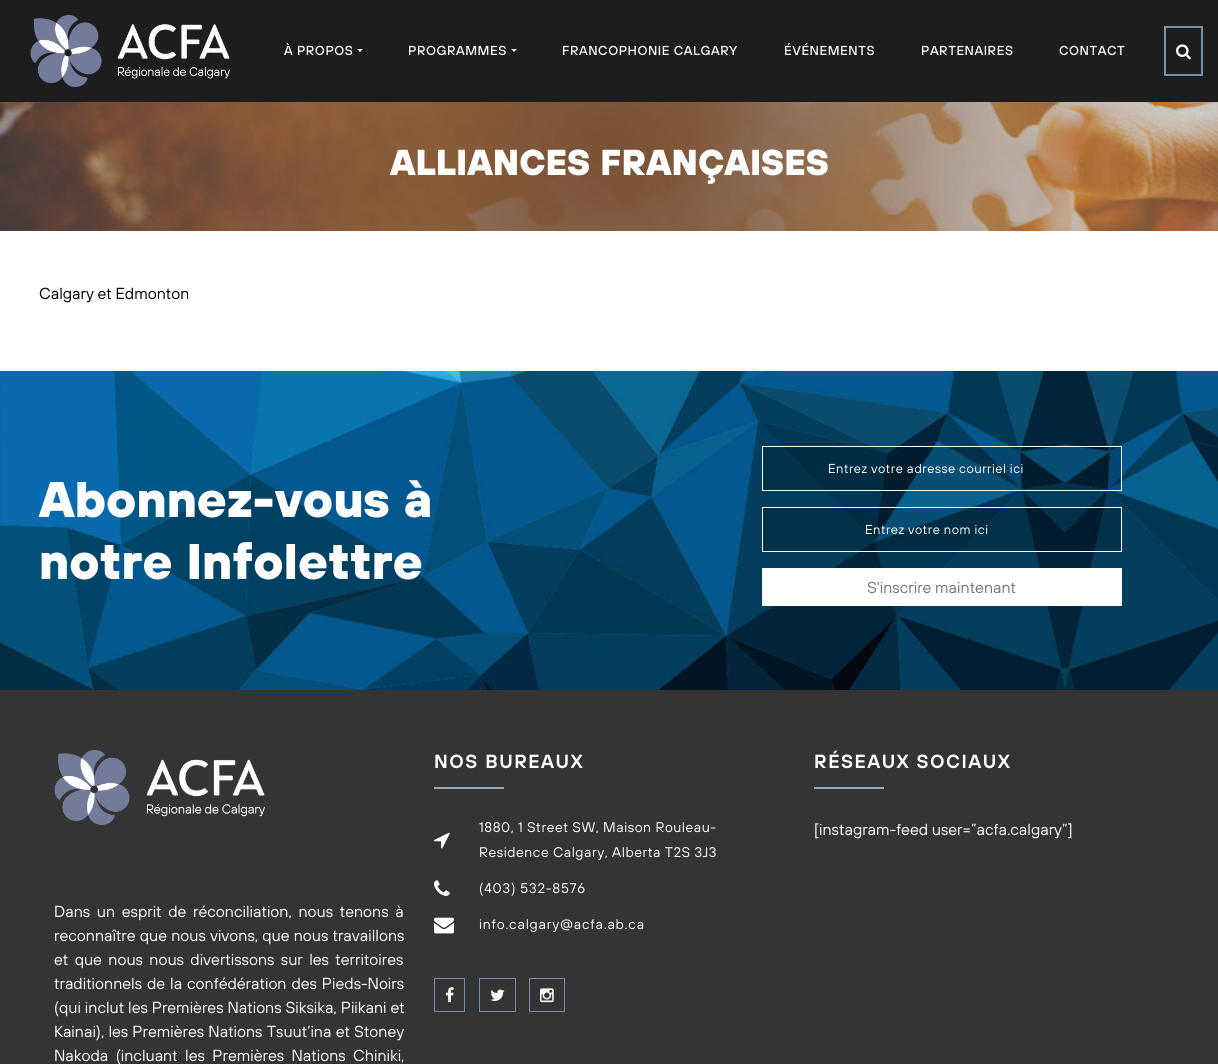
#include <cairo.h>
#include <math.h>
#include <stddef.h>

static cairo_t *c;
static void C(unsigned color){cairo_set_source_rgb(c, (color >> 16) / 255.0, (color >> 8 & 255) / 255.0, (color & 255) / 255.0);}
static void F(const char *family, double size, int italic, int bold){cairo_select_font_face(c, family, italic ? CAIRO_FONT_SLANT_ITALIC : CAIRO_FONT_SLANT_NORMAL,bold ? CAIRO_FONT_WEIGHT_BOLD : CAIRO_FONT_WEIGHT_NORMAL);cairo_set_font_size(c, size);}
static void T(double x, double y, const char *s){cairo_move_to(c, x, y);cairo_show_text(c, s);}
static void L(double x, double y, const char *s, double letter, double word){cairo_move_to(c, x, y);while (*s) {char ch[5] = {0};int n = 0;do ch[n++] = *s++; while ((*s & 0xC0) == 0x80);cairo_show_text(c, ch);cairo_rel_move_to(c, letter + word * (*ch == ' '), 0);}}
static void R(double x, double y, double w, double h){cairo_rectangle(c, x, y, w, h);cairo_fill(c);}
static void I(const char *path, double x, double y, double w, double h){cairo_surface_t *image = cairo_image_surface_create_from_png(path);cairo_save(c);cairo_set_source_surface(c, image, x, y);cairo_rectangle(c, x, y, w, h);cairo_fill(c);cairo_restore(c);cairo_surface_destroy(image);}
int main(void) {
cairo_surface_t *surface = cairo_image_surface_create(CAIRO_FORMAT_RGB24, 1218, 1064);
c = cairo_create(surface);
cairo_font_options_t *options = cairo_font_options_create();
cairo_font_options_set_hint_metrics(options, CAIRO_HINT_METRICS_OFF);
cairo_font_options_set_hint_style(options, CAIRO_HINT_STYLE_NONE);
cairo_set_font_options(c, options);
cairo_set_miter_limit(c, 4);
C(0xffffff);
cairo_paint(c);
C(0x1d1d1d);
R(0,0,1218,102);
I("1.png",30,15,200,72);
F("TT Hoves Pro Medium",13,0,0);
C(0xffffff);
L(284,55,"À PROPOS",.55,0);
cairo_new_path(c);
cairo_move_to(c,357,49);
cairo_line_to(c,363,49);
cairo_line_to(c,360,52);
cairo_close_path(c);
cairo_fill(c);
L(408,55,"PROGRAMMES",.55,0);
cairo_new_path(c);
cairo_move_to(c,511,49);
cairo_line_to(c,517,49);
cairo_line_to(c,514,52);
cairo_close_path(c);
cairo_fill(c);
L(562,55,"FRANCOPHONIE CALGARY",.55,0);
L(784,55,"ÉVÉNEMENTS",.55,0);
L(921,55,"PARTENAIRES",.55,0);
L(1059,55,"CONTACT",.55,0);
cairo_rectangle(c,1165,27,37,48);
C(0x7b8eaa);
cairo_stroke(c);
I("2.png",1176,44,15,16);
I("3.png",0,102,1218,129);
F("TT Hoves Pro ExtraBold",36,0,0);
C(0xffffff);
T(390,175,"ALLIANCES FRANÇAISES");
F("TT Hoves Pro",16,0,0);
C(0x000000);
T(39,299,"Calgary et Edmonton");
I("4.png",0,371,1218,319);
F("TT Hoves Pro ExtraBold",50,0,0);
C(0xffffff);
T(39,517,"Abonnez-vous à");
T(39,579,"notre Infolettre");
cairo_set_source_rgba(c,0,0,0,0.2);
cairo_rectangle(c,762.5,446.5,359,44);
cairo_fill_preserve(c);
C(0xffffff);
cairo_set_line_width(c,1);
cairo_stroke(c);
F("TT Hoves Pro",13,0,0);
L(828,473,"Entrez votre adresse courriel ici",.5,0);
cairo_set_source_rgba(c,0,0,0,0.2);
cairo_rectangle(c,762.5,507.5,359,44);
cairo_fill_preserve(c);
C(0xffffff);
cairo_stroke(c);
L(865,534,"Entrez votre nom ici",.5,0);
R(762,568,360,38);
F("TT Hoves Pro",16,0,0);
C(0x777777);
T(867,593,"S'inscrire maintenant");
C(0x343434);
R(0,690,1218,374);
F("TT Hoves Pro SemiBold",19,0,0);
C(0xffffff);
L(434,768,"NOS BUREAUX",1.5,0);
C(0x97adbe);
R(434,787,70,2);
F("TT Hoves Pro",14,0,0);
C(0xffffff);
L(479,832,"1880, 1 Street SW, Maison Rouleau-",.55,0);
I("5.png",434,832,16,17);
L(479,857,"Residence Calgary, Alberta T2S 3J3",.55,0);
I("6.png",434,880,16,16);
L(479,893,"(403) 532-8576",.8,0);
I("7.png",434,917,20,17);
L(479,929,"info.calgary@acfa.ab.ca",.8,0);
cairo_rectangle(c,434.5,978.5,30,33);
C(0x7b8eaa);
cairo_stroke(c);
I("8.png",445,987,9,16);
cairo_rectangle(c,479.5,978.5,36,33);
cairo_stroke(c);
I("9.png",490,989,15,12);
cairo_rectangle(c,529.5,978.5,35,33);
cairo_stroke(c);
I("10.png",540,988,14,15);
F("TT Hoves Pro SemiBold",19,0,0);
C(0xffffff);
L(814,768,"RÉSEAUX SOCIAUX",1.5,0);
C(0x97adbe);
R(814,787,70,2);
F("TT Hoves Pro",16,0,0);
C(0xffffff);
T(814,835,"[instagram-feed user=”acfa.calgary”]");
I("11.png",54,750,211,75);
L(54,917,"Dans un esprit de réconciliation, nous tenons à",0,3);
L(54,941,"reconnaître que nous vivons, que nous travaillons",0,.5);
L(54,965,"et que nous nous divertissons sur les territoires",0,2.75);
L(54,989,"traditionnels de la confédération des Pieds-Noirs",0,1.25);
L(54,1013,"(qui inclut les Premières Nations Siksika, Piikani et",0,.25);
L(54,1037,"Kainai), les Premières Nations Tsuut’ina et Stoney",0,.5);
L(54,1061,"Nakoda (incluant les Premières Nations Chiniki,",0,3.75);
cairo_surface_write_to_png(surface, "o.png");
cairo_font_options_destroy(options);
cairo_destroy(c);
cairo_surface_destroy(surface);
return 0;
}
